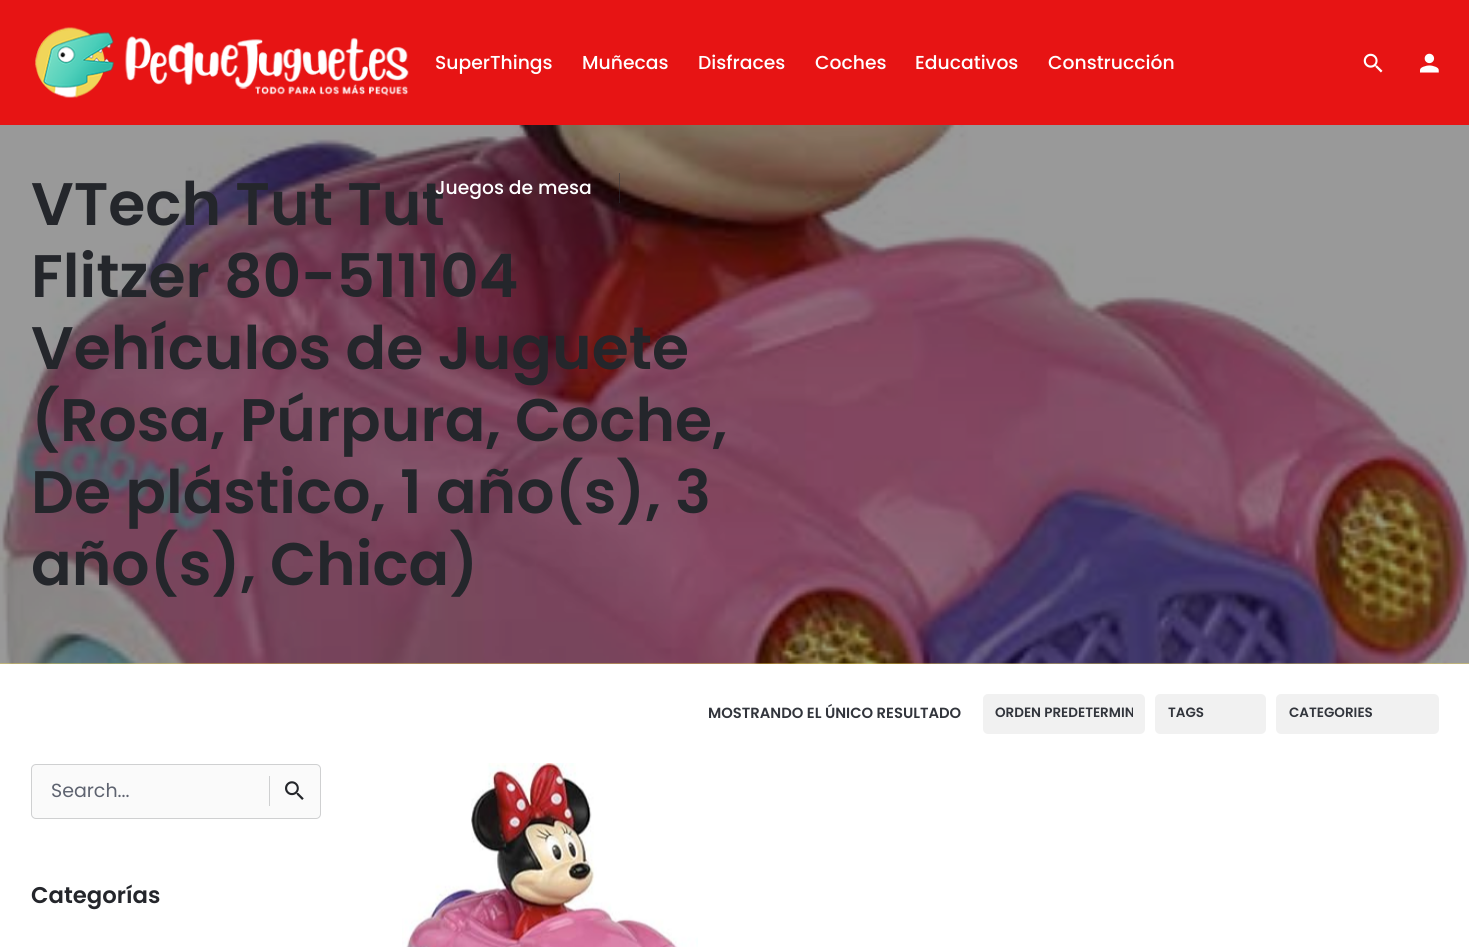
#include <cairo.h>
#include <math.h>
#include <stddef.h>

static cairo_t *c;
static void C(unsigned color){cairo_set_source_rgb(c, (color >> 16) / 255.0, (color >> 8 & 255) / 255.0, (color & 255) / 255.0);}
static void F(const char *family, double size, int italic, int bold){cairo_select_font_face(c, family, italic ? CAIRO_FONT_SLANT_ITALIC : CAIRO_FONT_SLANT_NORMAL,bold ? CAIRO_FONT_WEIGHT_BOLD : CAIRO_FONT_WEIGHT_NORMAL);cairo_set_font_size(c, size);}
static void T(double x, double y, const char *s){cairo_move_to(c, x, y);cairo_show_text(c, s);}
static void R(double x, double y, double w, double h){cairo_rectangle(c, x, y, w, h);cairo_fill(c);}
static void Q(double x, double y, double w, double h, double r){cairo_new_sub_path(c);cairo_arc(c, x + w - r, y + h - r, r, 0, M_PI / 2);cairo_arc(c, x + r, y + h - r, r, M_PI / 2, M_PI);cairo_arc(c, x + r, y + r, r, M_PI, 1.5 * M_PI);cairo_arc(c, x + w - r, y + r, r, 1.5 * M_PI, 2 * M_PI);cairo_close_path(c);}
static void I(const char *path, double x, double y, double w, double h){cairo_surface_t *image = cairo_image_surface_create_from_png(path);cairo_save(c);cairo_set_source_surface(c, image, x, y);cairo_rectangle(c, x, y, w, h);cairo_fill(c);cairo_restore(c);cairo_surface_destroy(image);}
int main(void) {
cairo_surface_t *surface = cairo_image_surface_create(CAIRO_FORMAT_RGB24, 1469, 947);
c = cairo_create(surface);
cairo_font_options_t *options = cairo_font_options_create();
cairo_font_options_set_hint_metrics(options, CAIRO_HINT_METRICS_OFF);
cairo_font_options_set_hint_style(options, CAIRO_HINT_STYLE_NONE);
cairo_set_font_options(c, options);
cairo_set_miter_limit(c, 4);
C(0xffffff);
cairo_paint(c);
C(0xe71414);
R(0,0,1469,125);
I("1.png",35,27,374,71);
F("Poppins Medium",18.75,0,0);
C(0xffffff);
T(435,69,"SuperThings");
T(582,69,"Muñecas");
T(698,69,"Disfraces");
T(815,69,"Coches");
T(915,69,"Educativos");
T(1048,69,"Construcción");
C(0xf0d559);
R(0,663,1469,1);
I("4.png",0,125,1469,539);
F("Poppins SemiBold",60,0,0);
C(0x24262b);
T(31,225,"VTech Tut Tut");
F("Poppins Medium",18.75,0,0);
C(0xffffff);
T(435,194,"Juegos de mesa");
cairo_set_source_rgba(c,0.196,0.208,0.235,0.5);
R(619,173,1,30);
I("2.png",1363,53,20,20);
I("3.png",1420,53,19,20);
F("Poppins SemiBold",60,0,0);
C(0x24262b);
T(31,297,"Flitzer 80-511104");
T(31,369,"Vehículos de Juguete");
T(31,441,"(Rosa, Púrpura, Coche,");
T(31,513,"De plástico, 1 año(s), 3");
T(31,585,"año(s), Chica)");
F("Poppins SemiBold",14.75,0,0);
C(0x32353c);
T(708,718,"MOSTRANDO EL ÚNICO RESULTADO");
C(0xf1f1f1);
Q(983,694,162,40,5);
cairo_fill(c);
cairo_save(c);
cairo_rectangle(c,995,701,138,25);
cairo_clip(c);
F("Poppins SemiBold",13.5,0,0);
C(0x32353c);
T(995,717,"ORDEN PREDETERMIN");
cairo_restore(c);
Q(1155,694,111,40,5);
cairo_fill(c);
F("Poppins SemiBold",13.5,0,0);
C(0x32353c);
T(1168,717,"TAGS");
C(0xf1f1f1);
Q(1276,694,163,40,5);
cairo_fill(c);
C(0x32353c);
T(1289,717,"CATEGORIES");
C(0xfafafa);
Q(31.5,764.5,289,54,4.5);
cairo_fill_preserve(c);
C(0xcfd0d1);
cairo_set_line_width(c,1);
cairo_stroke(c);
F("Poppins",19,0,0);
C(0x5e6370);
T(51,797,"Search...");
C(0xcfd0d1);
R(269,776,1,30);
I("5.png",285,781,19,19);
F("Poppins SemiBold",22.75,0,0);
C(0x24262b);
T(31,903,"Categorías");
I("6.png",402,763,296,184);
cairo_surface_write_to_png(surface, "o.png");
cairo_font_options_destroy(options);
cairo_destroy(c);
cairo_surface_destroy(surface);
return 0;
}
